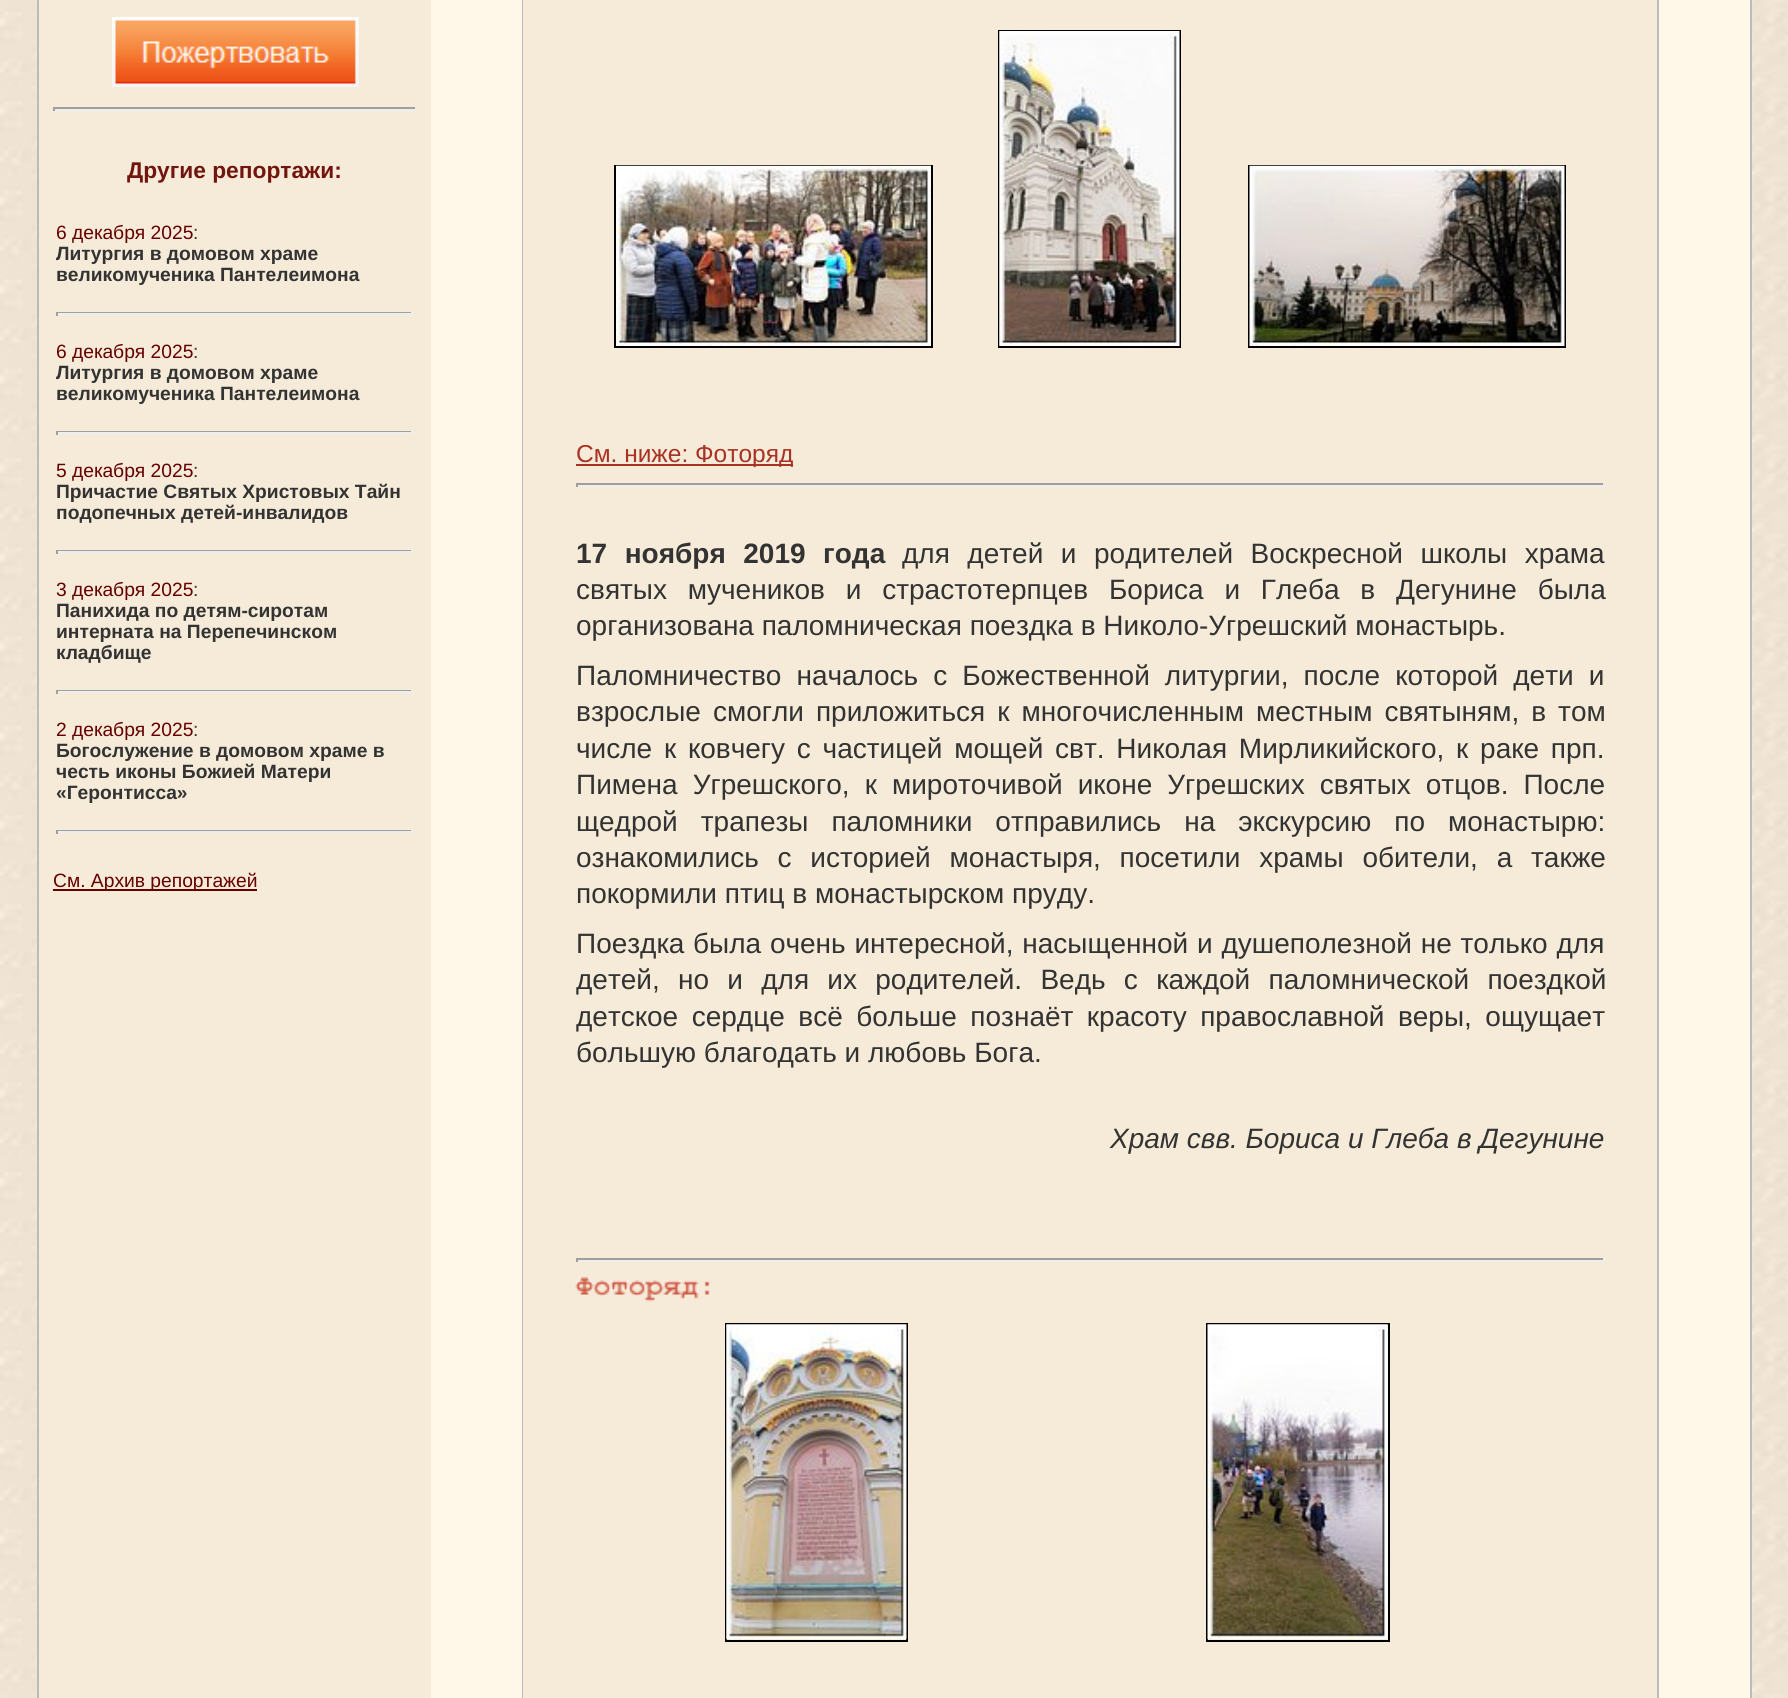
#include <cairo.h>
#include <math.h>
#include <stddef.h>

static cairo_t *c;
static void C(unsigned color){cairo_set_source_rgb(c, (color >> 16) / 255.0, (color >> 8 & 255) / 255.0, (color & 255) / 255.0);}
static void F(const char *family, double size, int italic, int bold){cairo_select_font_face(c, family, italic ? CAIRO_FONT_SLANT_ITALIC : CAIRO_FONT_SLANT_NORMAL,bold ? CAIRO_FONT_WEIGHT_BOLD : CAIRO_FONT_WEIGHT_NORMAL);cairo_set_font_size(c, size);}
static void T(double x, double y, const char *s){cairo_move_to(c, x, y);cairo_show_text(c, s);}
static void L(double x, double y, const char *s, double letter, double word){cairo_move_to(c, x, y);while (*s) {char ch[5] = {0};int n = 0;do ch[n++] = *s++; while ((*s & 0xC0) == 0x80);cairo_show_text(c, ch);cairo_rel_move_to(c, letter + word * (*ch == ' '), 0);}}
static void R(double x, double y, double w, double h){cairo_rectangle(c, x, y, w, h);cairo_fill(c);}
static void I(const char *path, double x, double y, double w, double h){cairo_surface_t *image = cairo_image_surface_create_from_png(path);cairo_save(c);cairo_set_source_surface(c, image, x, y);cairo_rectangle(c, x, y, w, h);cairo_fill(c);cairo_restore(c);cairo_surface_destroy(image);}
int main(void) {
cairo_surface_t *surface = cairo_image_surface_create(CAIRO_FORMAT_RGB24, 1788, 1698);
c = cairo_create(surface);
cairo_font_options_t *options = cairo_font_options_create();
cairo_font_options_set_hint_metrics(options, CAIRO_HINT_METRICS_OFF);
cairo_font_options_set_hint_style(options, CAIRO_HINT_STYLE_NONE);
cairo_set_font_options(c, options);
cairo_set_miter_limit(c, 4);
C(0xffffff);
cairo_paint(c);
I("1.png",0,0,1788,1698);
cairo_rectangle(c,38,-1,1713,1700);
C(0xbbbbbb);
cairo_stroke(c);
C(0xf5ebd8);
R(39,0,392,1698);
I("2.png",112,17,247,70);
C(0x9f9f9f);
R(53,107,364,2);
C(0xeeeeee);
R(415,107,2,4);
R(53,109,364,2);
C(0x9f9f9f);
R(53,107,2,4);
F("Liberation Sans",22.75,0,1);
C(0x72150e);
T(127,178,"Другие репортажи:");
F("Liberation Sans",19.25,0,0);
C(0x660000);
T(56,239,"6 декабря 2025");
C(0x333333);
T(193,239,":");
F("Liberation Sans",19.25,0,1);
T(56,260,"Литургия в домовом храме");
T(56,281,"великомученика Пантелеимона");
C(0x9f9f9f);
R(56,312,357,1);
C(0xeeeeee);
R(411,312,2,4);
R(56,313,357,2);
C(0x9f9f9f);
R(56,312,2,4);
F("Liberation Sans",19.25,0,0);
C(0x660000);
T(56,358,"6 декабря 2025");
C(0x333333);
T(193,358,":");
F("Liberation Sans",19.25,0,1);
T(56,379,"Литургия в домовом храме");
T(56,400,"великомученика Пантелеимона");
C(0x9f9f9f);
R(56,431,357,1);
C(0xeeeeee);
R(411,431,2,4);
R(56,432,357,2);
C(0x9f9f9f);
R(56,431,2,4);
F("Liberation Sans",19.25,0,0);
C(0x660000);
T(56,477,"5 декабря 2025");
C(0x333333);
T(193,477,":");
F("Liberation Sans",19.25,0,1);
T(56,498,"Причастие Святых Христовых Тайн");
T(56,519,"подопечных детей-инвалидов");
C(0x9f9f9f);
R(56,550,357,1);
C(0xeeeeee);
R(411,550,2,4);
R(56,551,357,2);
C(0x9f9f9f);
R(56,550,2,4);
F("Liberation Sans",19.25,0,0);
C(0x660000);
T(56,596,"3 декабря 2025");
C(0x333333);
T(193,596,":");
F("Liberation Sans",19.25,0,1);
T(56,617,"Панихида по детям-сиротам");
T(56,638,"интерната на Перепечинском");
T(56,659,"кладбище");
C(0x9f9f9f);
R(56,690,357,1);
C(0xeeeeee);
R(411,690,2,4);
R(56,691,357,2);
C(0x9f9f9f);
R(56,690,2,4);
F("Liberation Sans",19.25,0,0);
C(0x660000);
T(56,736,"2 декабря 2025");
C(0x333333);
T(193,736,":");
F("Liberation Sans",19.25,0,1);
T(56,757,"Богослужение в домовом храме в");
T(56,778,"честь иконы Божией Матери");
T(56,799,"«Геронтисса»");
C(0x9f9f9f);
R(56,830,357,1);
C(0xeeeeee);
R(411,830,2,4);
R(56,831,357,2);
C(0x9f9f9f);
R(56,830,2,4);
C(0x660000);
R(53,889,204,2);
F("Liberation Sans",19.25,0,0);
T(53,887,"См. Архив репортажей");
C(0xfff8e8);
R(431,0,1319,1698);
cairo_rectangle(c,523,-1,1135,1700);
C(0xbbbbbb);
cairo_stroke(c);
C(0xf5ebd8);
R(523,0,1134,1698);
cairo_rectangle(c,615,166,317,181);
C(0x000000);
cairo_stroke(c);
I("3.png",616,165,315,181);
cairo_rectangle(c,999,31,181,316);
cairo_stroke(c);
I("4.png",999,31,181,315);
cairo_rectangle(c,1249,166,316,181);
cairo_stroke(c);
I("5.png",1249,165,316,181);
C(0xa83224);
R(576,464,217,2);
F("Liberation Sans",24.5,0,0);
T(576,462,"См. ниже: Фоторяд");
C(0x9f9f9f);
R(576,483,1029,2);
C(0xeeeeee);
R(1603,483,2,4);
R(576,485,1029,2);
C(0x9f9f9f);
R(576,483,2,4);
F("Liberation Sans",28,0,1);
C(0x333333);
L(576,563,"17 ноября 2019 года",0,9.75);
F("Liberation Sans",28,0,0);
L(902,563,"для детей и родителей Воскресной школы храма",0,9.75);
L(576,599,"святых мучеников и страстотерпцев Бориса и Глеба в Дегунине была",0,13);
T(576,635,"организована паломническая поездка в Николо-Угрешский монастырь.");
L(576,685,"Паломничество началось с Божественной литургии, после которой дети и",0,7.25);
L(576,721,"взрослые смогли приложиться к многочисленным местным святыням, в том",0,4.25);
L(576,758,"числе к ковчегу с частицей мощей свт. Николая Мирликийского, к раке прп.",0,4);
L(576,794,"Пимена Угрешского, к мироточивой иконе Угрешских святых отцов. После",0,7.25);
L(576,831,"щедрой трапезы паломники отправились на экскурсию по монастырю:",0,15.25);
L(576,867,"ознакомились с историей монастыря, посетили храмы обители, а также",0,11);
T(576,903,"покормили птиц в монастырском пруду.");
L(576,953,"Поездка была очень интересной, насыщенной и душеполезной не только для",0,1);
L(576,989,"детей, но и для их родителей. Ведь с каждой паломнической поездкой",0,10.5);
L(576,1026,"детское сердце всё больше познаёт красоту православной веры, ощущает",0,5.75);
T(576,1062,"большую благодать и любовь Бога.");
F("Liberation Sans",28,1,0);
T(1110,1148,"Храм свв. Бориса и Глеба в Дегунине");
C(0x9f9f9f);
R(576,1258,1029,2);
C(0xeeeeee);
R(1603,1258,2,4);
R(576,1260,1029,2);
C(0x9f9f9f);
R(576,1258,2,4);
I("6.png",575,1277,136,25);
cairo_rectangle(c,726,1324,181,317);
C(0x000000);
cairo_stroke(c);
I("7.png",726,1324,181,316);
cairo_rectangle(c,1207,1324,182,317);
cairo_stroke(c);
I("8.png",1207,1324,181,316);
cairo_surface_write_to_png(surface, "o.png");
cairo_font_options_destroy(options);
cairo_destroy(c);
cairo_surface_destroy(surface);
return 0;
}
